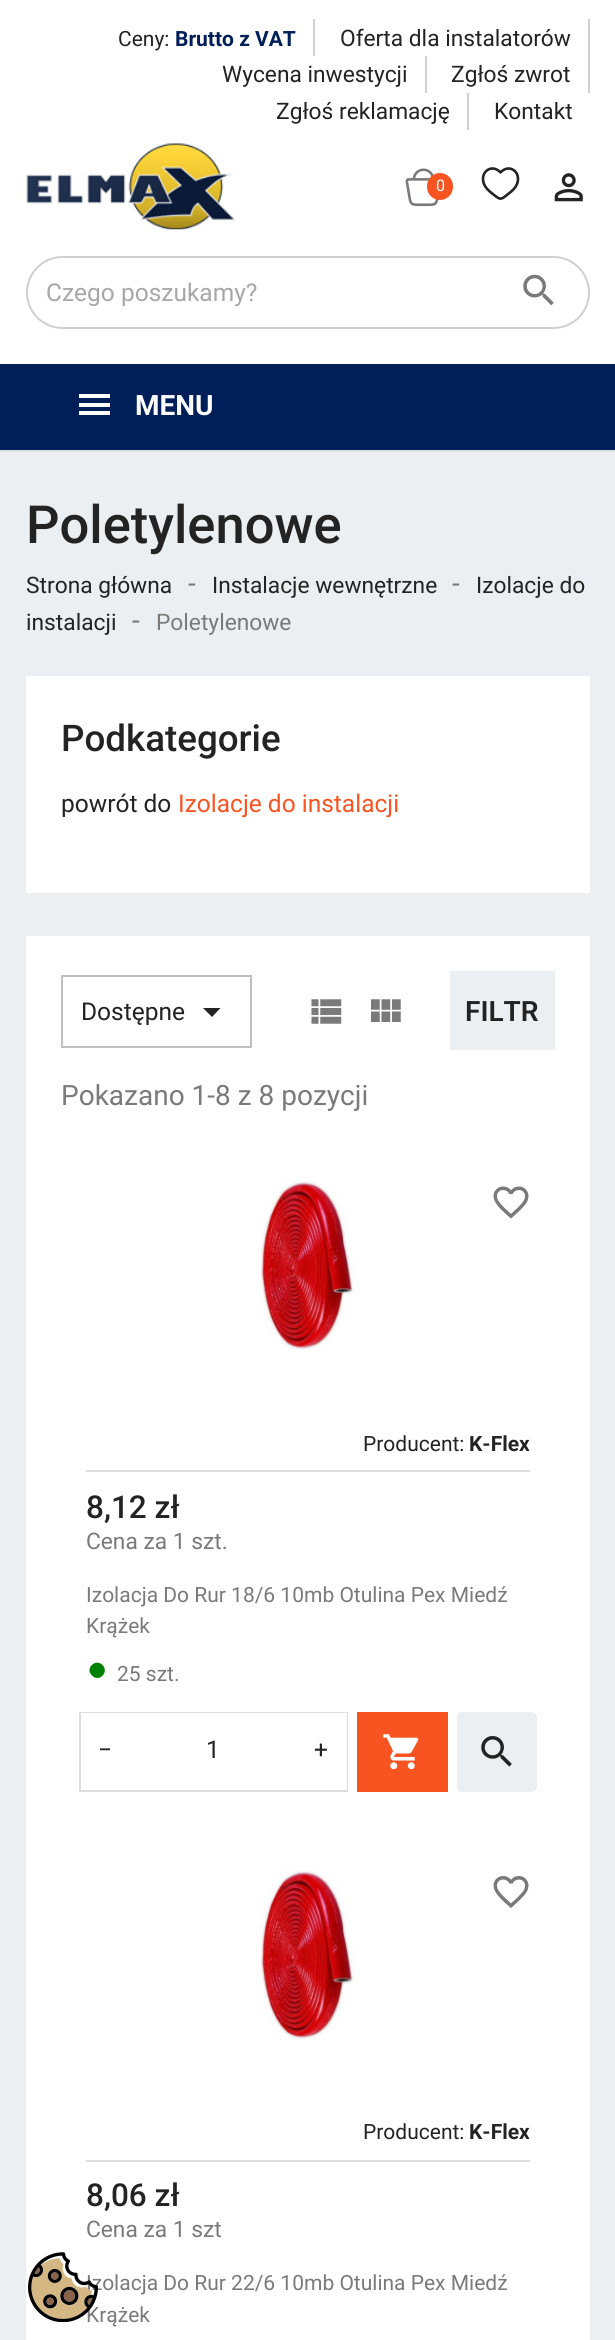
#include <cairo.h>
#include <math.h>
#include <stddef.h>

static cairo_t *c;
static void C(unsigned color){cairo_set_source_rgb(c, (color >> 16) / 255.0, (color >> 8 & 255) / 255.0, (color & 255) / 255.0);}
static void F(const char *family, double size, int italic, int bold){cairo_select_font_face(c, family, italic ? CAIRO_FONT_SLANT_ITALIC : CAIRO_FONT_SLANT_NORMAL,bold ? CAIRO_FONT_WEIGHT_BOLD : CAIRO_FONT_WEIGHT_NORMAL);cairo_set_font_size(c, size);}
static void T(double x, double y, const char *s){cairo_move_to(c, x, y);cairo_show_text(c, s);}
static void R(double x, double y, double w, double h){cairo_rectangle(c, x, y, w, h);cairo_fill(c);}
static void Q(double x, double y, double w, double h, double r){cairo_new_sub_path(c);cairo_arc(c, x + w - r, y + h - r, r, 0, M_PI / 2);cairo_arc(c, x + r, y + h - r, r, M_PI / 2, M_PI);cairo_arc(c, x + r, y + r, r, M_PI, 1.5 * M_PI);cairo_arc(c, x + w - r, y + r, r, 1.5 * M_PI, 2 * M_PI);cairo_close_path(c);}
static void I(const char *path, double x, double y, double w, double h){cairo_surface_t *image = cairo_image_surface_create_from_png(path);cairo_save(c);cairo_set_source_surface(c, image, x, y);cairo_rectangle(c, x, y, w, h);cairo_fill(c);cairo_restore(c);cairo_surface_destroy(image);}
int main(void) {
cairo_surface_t *surface = cairo_image_surface_create(CAIRO_FORMAT_RGB24, 615, 2340);
c = cairo_create(surface);
cairo_font_options_t *options = cairo_font_options_create();
cairo_font_options_set_hint_metrics(options, CAIRO_HINT_METRICS_OFF);
cairo_font_options_set_hint_style(options, CAIRO_HINT_STYLE_NONE);
cairo_set_font_options(c, options);
cairo_set_miter_limit(c, 4);
C(0xffffff);
cairo_paint(c);
C(0xdfdfdf);
R(0,450,615,2);
C(0xd1d1d1);
R(313,19,2,37);
F("Roboto",21,0,0);
C(0x232323);
T(118,46,"Ceny:");
F("Roboto",21,0,1);
C(0x001e58);
T(175,46,"Brutto z VAT");
C(0xd1d1d1);
R(588,19,2,74);
F("Roboto",22.75,0,0);
C(0x232323);
T(340,46,"Oferta dla instalatorów");
C(0xd1d1d1);
R(425,56,2,37);
C(0x232323);
T(222,82,"Wycena inwestycji");
T(451,82,"Zgłoś zwrot");
C(0xd1d1d1);
R(467,93,2,37);
C(0x232323);
T(276,119,"Zgłoś reklamację");
T(494,119,"Kontakt");
I("1.png",26,143,210,87);
I("2.png",405,168,34,39);
C(0xf85422);
Q(427,173,26,27,13);
cairo_fill(c);
F("Roboto",16,0,0);
C(0xffffff);
T(436,191,"0");
I("3.png",481,167,39,33);
I("4.png",554,173,29,29);
Q(27,257,562,71,35.5);
C(0xcfcfcf);
cairo_stroke(c);
cairo_save(c);
cairo_rectangle(c,46,278,514,28);
cairo_clip(c);
F("Roboto",24.5,0,0);
C(0xa7a7a7);
T(46,301,"Czego poszukamy?");
cairo_restore(c);
I("5.png",523,274,31,32);
C(0x001e58);
R(0,364,615,86);
C(0xffffff);
R(79,394,31,4);
R(79,403,31,4);
R(79,411,31,4);
F("Roboto",28,0,1);
T(135,415,"MENU");
C(0xeceff1);
R(0,452,615,1888);
F("Roboto Medium",52.5,0,0);
C(0x232323);
T(26,543,"Poletylenowe");
F("Roboto",22.75,0,0);
T(26,593,"Strona główna");
F("Roboto",28,0,0);
C(0x7a7a7a);
T(188,593,"-");
F("Roboto",22.75,0,0);
C(0x232323);
T(212,593,"Instalacje wewnętrzne");
F("Roboto",28,0,0);
C(0x7a7a7a);
T(452,593,"-");
F("Roboto",22.75,0,0);
C(0x232323);
T(476,593,"Izolacje do");
T(26,630,"instalacji");
F("Roboto",28,0,0);
C(0x7a7a7a);
T(132,630,"-");
F("Roboto",22.75,0,0);
T(156,630,"Poletylenowe");
C(0xffffff);
R(26,676,564,217);
F("Roboto Medium",36.75,0,0);
C(0x232323);
T(61,751,"Podkategorie");
F("Roboto",24.5,0,0);
T(61,812,"powrót do");
C(0xf85422);
T(178,812,"Izolacje do instalacji");
C(0xffffff);
R(26,936,564,1404);
cairo_rectangle(c,62,976,189,71);
C(0xbfbfbf);
cairo_stroke(c);
C(0x232323);
T(81,1020,"Dostępne");
cairo_new_path(c);
cairo_move_to(c,203,1008);
cairo_line_to(c,220.5,1008);
cairo_line_to(c,212,1017);
cairo_close_path(c);
cairo_fill(c);
I("6.png",311,999,31,25);
I("7.png",371,999,30,23);
C(0xeceff1);
R(450,971,105,79);
F("Roboto SemiBold",28,0,0);
C(0x232323);
T(465,1021,"FILTR");
F("Roboto",28,0,0);
C(0x7a7a7a);
T(61,1105,"Pokazano 1-8 z 8 pozycji");
I("8.png",260,1179,96,171);
I("9.png",493,1186,36,33);
C(0xdddddd);
R(86,1470,444,2);
F("Roboto",21,0,0);
C(0x232323);
T(363,1451,"Producent:");
F("Roboto",21,0,1);
T(469,1451,"K-Flex");
F("Roboto Medium",31.5,0,0);
T(86,1518,"8,12 zł");
F("Roboto",22.75,0,0);
C(0x7a7a7a);
T(86,1549,"Cena za 1 szt.");
F("Roboto",21,0,0);
T(86,1602,"Izolacja Do Rur 18/6 10mb Otulina Pex Miedź");
T(86,1633,"Krążek");
C(0x008000);
cairo_new_path(c);
cairo_move_to(c,92,1675.5);
cairo_curve_to(c,84.5,1668.5,95.5,1658,102.5,1665);
cairo_curve_to(c,109.5,1672,99,1683,92,1675.5);
cairo_close_path(c);
cairo_fill(c);
C(0x7a7a7a);
T(117,1681,"25 szt.");
cairo_rectangle(c,80,1713,267,78);
C(0xdddddd);
cairo_stroke(c);
C(0xffffff);
R(81,1713,217,1);
F("Roboto",24.5,0,0);
C(0x232323);
T(98,1758,"−");
T(206,1758,"1");
C(0xffffff);
R(298,1713,49,77);
C(0x232323);
T(314,1758,"+");
C(0xf85422);
R(357,1712,91,80);
I("10.png",383,1734,36,36);
C(0xeceff1);
Q(457,1712,80,80,5);
cairo_fill(c);
I("11.png",481,1736,31,31);
I("12.png",260,1869,96,171);
I("13.png",493,1876,36,32);
C(0xdddddd);
R(86,2160,444,2);
F("Roboto",21,0,0);
C(0x232323);
T(363,2139,"Producent:");
F("Roboto",21,0,1);
T(469,2139,"K-Flex");
F("Roboto Medium",31.5,0,0);
T(86,2206,"8,06 zł");
F("Roboto",22.75,0,0);
C(0x7a7a7a);
T(86,2237,"Cena za 1 szt");
F("Roboto",21,0,0);
T(86,2290,"Izolacja Do Rur 22/6 10mb Otulina Pex Miedź");
T(86,2322,"Krążek");
I("14.png",28,2252,70,70);
cairo_surface_write_to_png(surface, "o.png");
cairo_font_options_destroy(options);
cairo_destroy(c);
cairo_surface_destroy(surface);
return 0;
}
